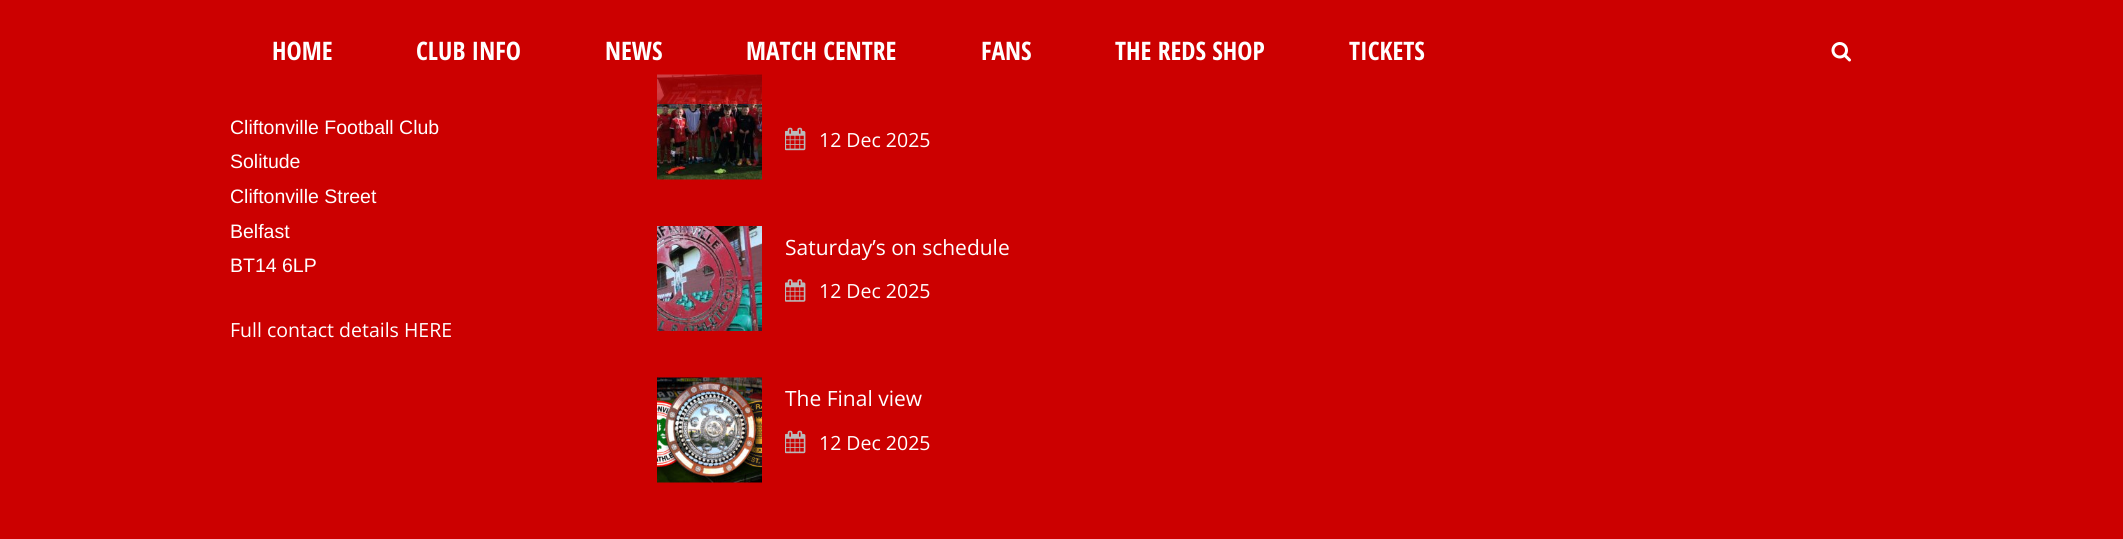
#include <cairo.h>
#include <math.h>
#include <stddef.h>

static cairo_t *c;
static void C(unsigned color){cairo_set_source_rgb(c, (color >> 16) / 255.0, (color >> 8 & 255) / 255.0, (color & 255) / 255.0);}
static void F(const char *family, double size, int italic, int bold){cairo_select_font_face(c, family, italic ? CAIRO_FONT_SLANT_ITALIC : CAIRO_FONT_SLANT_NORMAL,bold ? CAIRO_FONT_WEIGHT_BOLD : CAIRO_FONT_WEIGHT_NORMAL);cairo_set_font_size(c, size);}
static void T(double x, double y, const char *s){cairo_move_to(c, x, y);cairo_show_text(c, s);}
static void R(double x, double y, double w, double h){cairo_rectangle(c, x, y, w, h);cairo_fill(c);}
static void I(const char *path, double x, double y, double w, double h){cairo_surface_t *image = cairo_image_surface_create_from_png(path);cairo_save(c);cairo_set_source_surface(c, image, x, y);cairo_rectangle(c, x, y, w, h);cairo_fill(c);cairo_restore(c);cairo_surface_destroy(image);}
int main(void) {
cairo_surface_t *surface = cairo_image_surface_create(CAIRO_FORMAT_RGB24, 2123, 539);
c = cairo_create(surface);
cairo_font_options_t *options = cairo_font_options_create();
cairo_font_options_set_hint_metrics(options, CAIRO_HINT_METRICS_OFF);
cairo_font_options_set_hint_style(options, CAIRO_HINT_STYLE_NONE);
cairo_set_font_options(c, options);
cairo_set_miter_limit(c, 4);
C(0xcc0000);
cairo_paint(c);
I("2.png",657,74,105,106);
cairo_set_source_rgba(c,0.8,0,0,0.7);
R(657,74,105,30);
F("Open Sans Condensed",25.5,0,1);
C(0xffffff);
T(272,60,"HOME");
T(416,60,"CLUB INFO");
T(605,60,"NEWS");
T(746,60,"MATCH CENTRE");
T(981,60,"FANS");
T(1115,60,"THE REDS SHOP");
T(1349,60,"TICKETS");
I("1.png",1831,42,20,20);
F("Liberation Sans",19.5,0,0);
T(230,134,"Cliftonville Football Club");
T(230,168,"Solitude");
T(230,203,"Cliftonville Street");
T(230,238,"Belfast");
T(230,272,"BT14 6LP");
F("Open Sans",19.5,0,0);
T(230,337,"Full contact details HERE");
I("3.png",785,127,21,24);
T(819,147,"12 Dec 2025");
I("4.png",657,226,105,105);
F("Open Sans",21,0,0);
T(785,255,"Saturday’s on schedule");
I("5.png",785,279,21,23);
F("Open Sans",19.5,0,0);
T(819,298,"12 Dec 2025");
I("6.png",657,377,105,106);
F("Open Sans",21,0,0);
T(785,406,"The Final view");
I("3.png",785,430,21,24);
F("Open Sans",19.5,0,0);
T(819,450,"12 Dec 2025");
cairo_surface_write_to_png(surface, "o.png");
cairo_font_options_destroy(options);
cairo_destroy(c);
cairo_surface_destroy(surface);
return 0;
}
